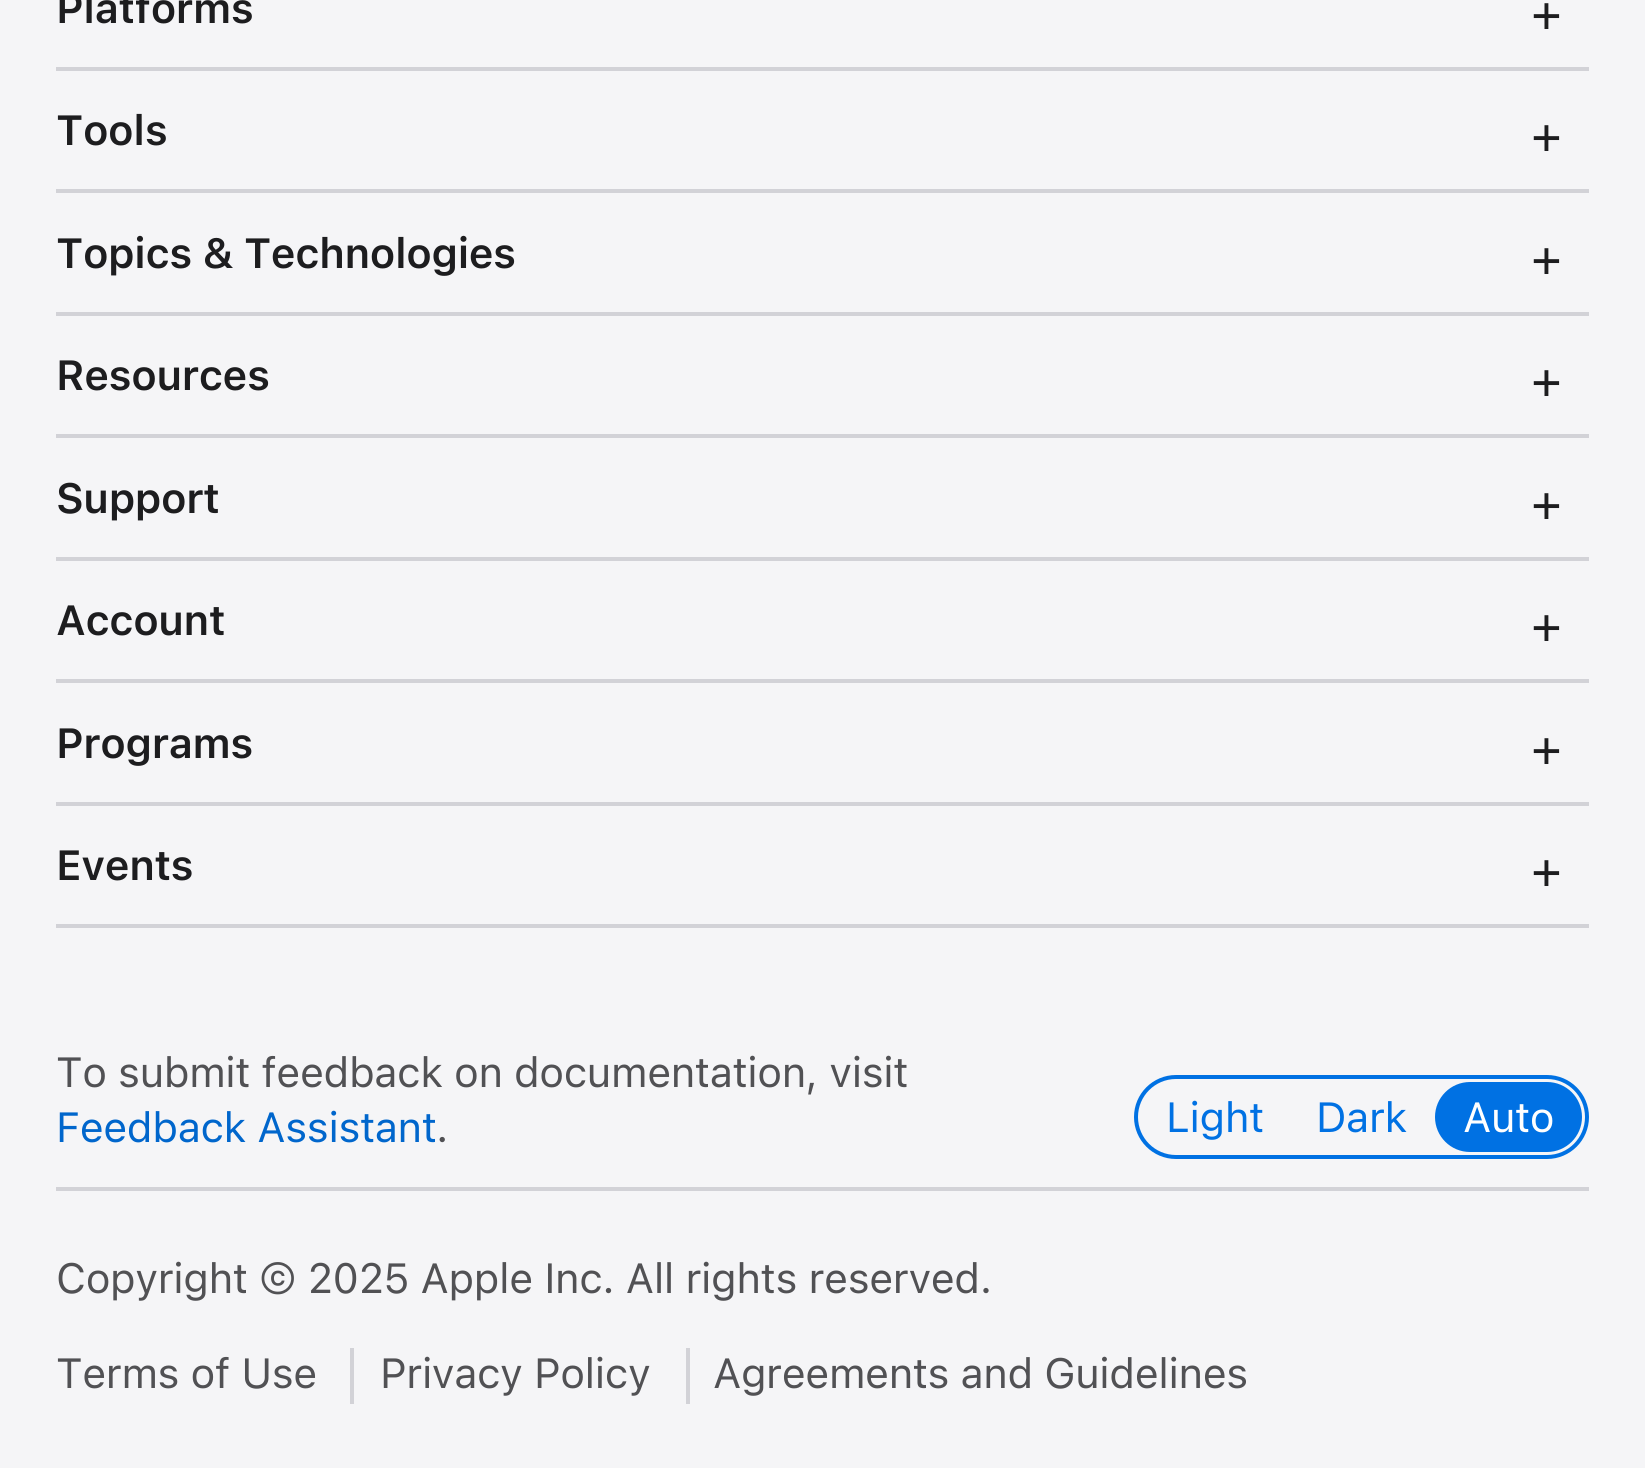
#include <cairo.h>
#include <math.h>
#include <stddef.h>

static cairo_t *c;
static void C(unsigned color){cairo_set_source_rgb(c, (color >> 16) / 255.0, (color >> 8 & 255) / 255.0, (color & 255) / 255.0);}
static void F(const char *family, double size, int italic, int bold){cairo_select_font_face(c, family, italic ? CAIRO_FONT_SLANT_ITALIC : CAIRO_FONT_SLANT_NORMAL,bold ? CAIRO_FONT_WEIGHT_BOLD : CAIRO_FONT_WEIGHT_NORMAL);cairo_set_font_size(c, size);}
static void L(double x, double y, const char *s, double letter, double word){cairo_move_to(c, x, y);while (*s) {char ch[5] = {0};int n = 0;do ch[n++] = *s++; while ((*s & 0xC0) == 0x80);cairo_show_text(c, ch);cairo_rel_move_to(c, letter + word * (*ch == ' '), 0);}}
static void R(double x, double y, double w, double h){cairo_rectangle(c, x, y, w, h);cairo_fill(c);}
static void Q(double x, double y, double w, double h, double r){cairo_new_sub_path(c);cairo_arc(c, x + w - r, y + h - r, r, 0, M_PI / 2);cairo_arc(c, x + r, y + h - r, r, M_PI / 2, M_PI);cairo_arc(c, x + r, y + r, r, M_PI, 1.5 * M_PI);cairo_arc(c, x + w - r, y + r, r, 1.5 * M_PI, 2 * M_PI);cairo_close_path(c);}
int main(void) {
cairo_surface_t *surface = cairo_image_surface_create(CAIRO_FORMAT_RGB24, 1645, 1468);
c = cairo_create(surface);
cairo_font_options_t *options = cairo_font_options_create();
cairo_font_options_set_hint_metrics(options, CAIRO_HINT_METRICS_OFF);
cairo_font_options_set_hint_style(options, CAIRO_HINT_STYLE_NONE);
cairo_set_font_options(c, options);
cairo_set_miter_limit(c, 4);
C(0xf5f5f7);
cairo_paint(c);
F("SF Pro Text SemiBold",42,0,0);
C(0x1d1d1f);
L(56,23,"Platforms",-.4,0);
F("SF Pro Text",49,0,0);
L(1531,30,"+",-.4,0);
C(0xd2d2d7);
R(56,67,1533,4);
F("SF Pro Text SemiBold",42,0,0);
C(0x1d1d1f);
L(56,145,"Tools",-.4,0);
F("SF Pro Text",49,0,0);
L(1531,152,"+",-.4,0);
C(0xd2d2d7);
R(56,189,1533,4);
F("SF Pro Text SemiBold",42,0,0);
C(0x1d1d1f);
L(56,268,"Topics & Technologies",-.4,0);
F("SF Pro Text",49,0,0);
L(1531,275,"+",-.4,0);
C(0xd2d2d7);
R(56,312,1533,4);
F("SF Pro Text SemiBold",42,0,0);
C(0x1d1d1f);
L(56,390,"Resources",-.4,0);
F("SF Pro Text",49,0,0);
L(1531,397,"+",-.4,0);
C(0xd2d2d7);
R(56,434,1533,4);
F("SF Pro Text SemiBold",42,0,0);
C(0x1d1d1f);
L(56,513,"Support",-.4,0);
F("SF Pro Text",49,0,0);
L(1531,520,"+",-.4,0);
C(0xd2d2d7);
R(56,557,1533,4);
F("SF Pro Text SemiBold",42,0,0);
C(0x1d1d1f);
L(56,635,"Account",-.4,0);
F("SF Pro Text",49,0,0);
L(1531,642,"+",-.4,0);
C(0xd2d2d7);
R(56,924,1533,4);
R(56,679,1533,4);
F("SF Pro Text SemiBold",42,0,0);
C(0x1d1d1f);
L(56,758,"Programs",-.4,0);
F("SF Pro Text",49,0,0);
L(1531,765,"+",-.4,0);
C(0xd2d2d7);
R(56,802,1533,4);
F("SF Pro Text SemiBold",42,0,0);
C(0x1d1d1f);
L(56,880,"Events",-.4,0);
F("SF Pro Text",49,0,0);
L(1531,887,"+",-.4,0);
C(0xd2d2d7);
R(56,1187,1533,4);
F("SF Pro Text",42,0,0);
C(0x515154);
L(56,1087,"To submit feedback on documentation, visit",-.4,0);
C(0x0066cc);
L(56,1142,"Feedback Assistant",-.4,0);
C(0x515154);
L(436,1142,".",-.4,0);
Q(1136,1077,451,80,40);
C(0x0071e3);
cairo_set_line_width(c,4);
cairo_stroke(c);
L(1166,1132,"Light",-.4,0);
L(1316,1132,"Dark",-.4,0);
Q(1437,1084,143,66,33);
cairo_fill_preserve(c);
cairo_stroke(c);
C(0xffffff);
L(1463,1132,"Auto",-.4,0);
C(0x515154);
L(56,1293,"Copyright © 2025 Apple Inc. All rights reserved.",-.4,0);
C(0xd2d2d7);
R(350,1348,4,56);
C(0x515154);
L(56,1388,"Terms of Use",-.4,0);
C(0xd2d2d7);
R(686,1348,4,56);
C(0x515154);
L(380,1388,"Privacy Policy",-.4,0);
L(713,1388,"Agreements and Guidelines",-.4,0);
cairo_surface_write_to_png(surface, "o.png");
cairo_font_options_destroy(options);
cairo_destroy(c);
cairo_surface_destroy(surface);
return 0;
}
